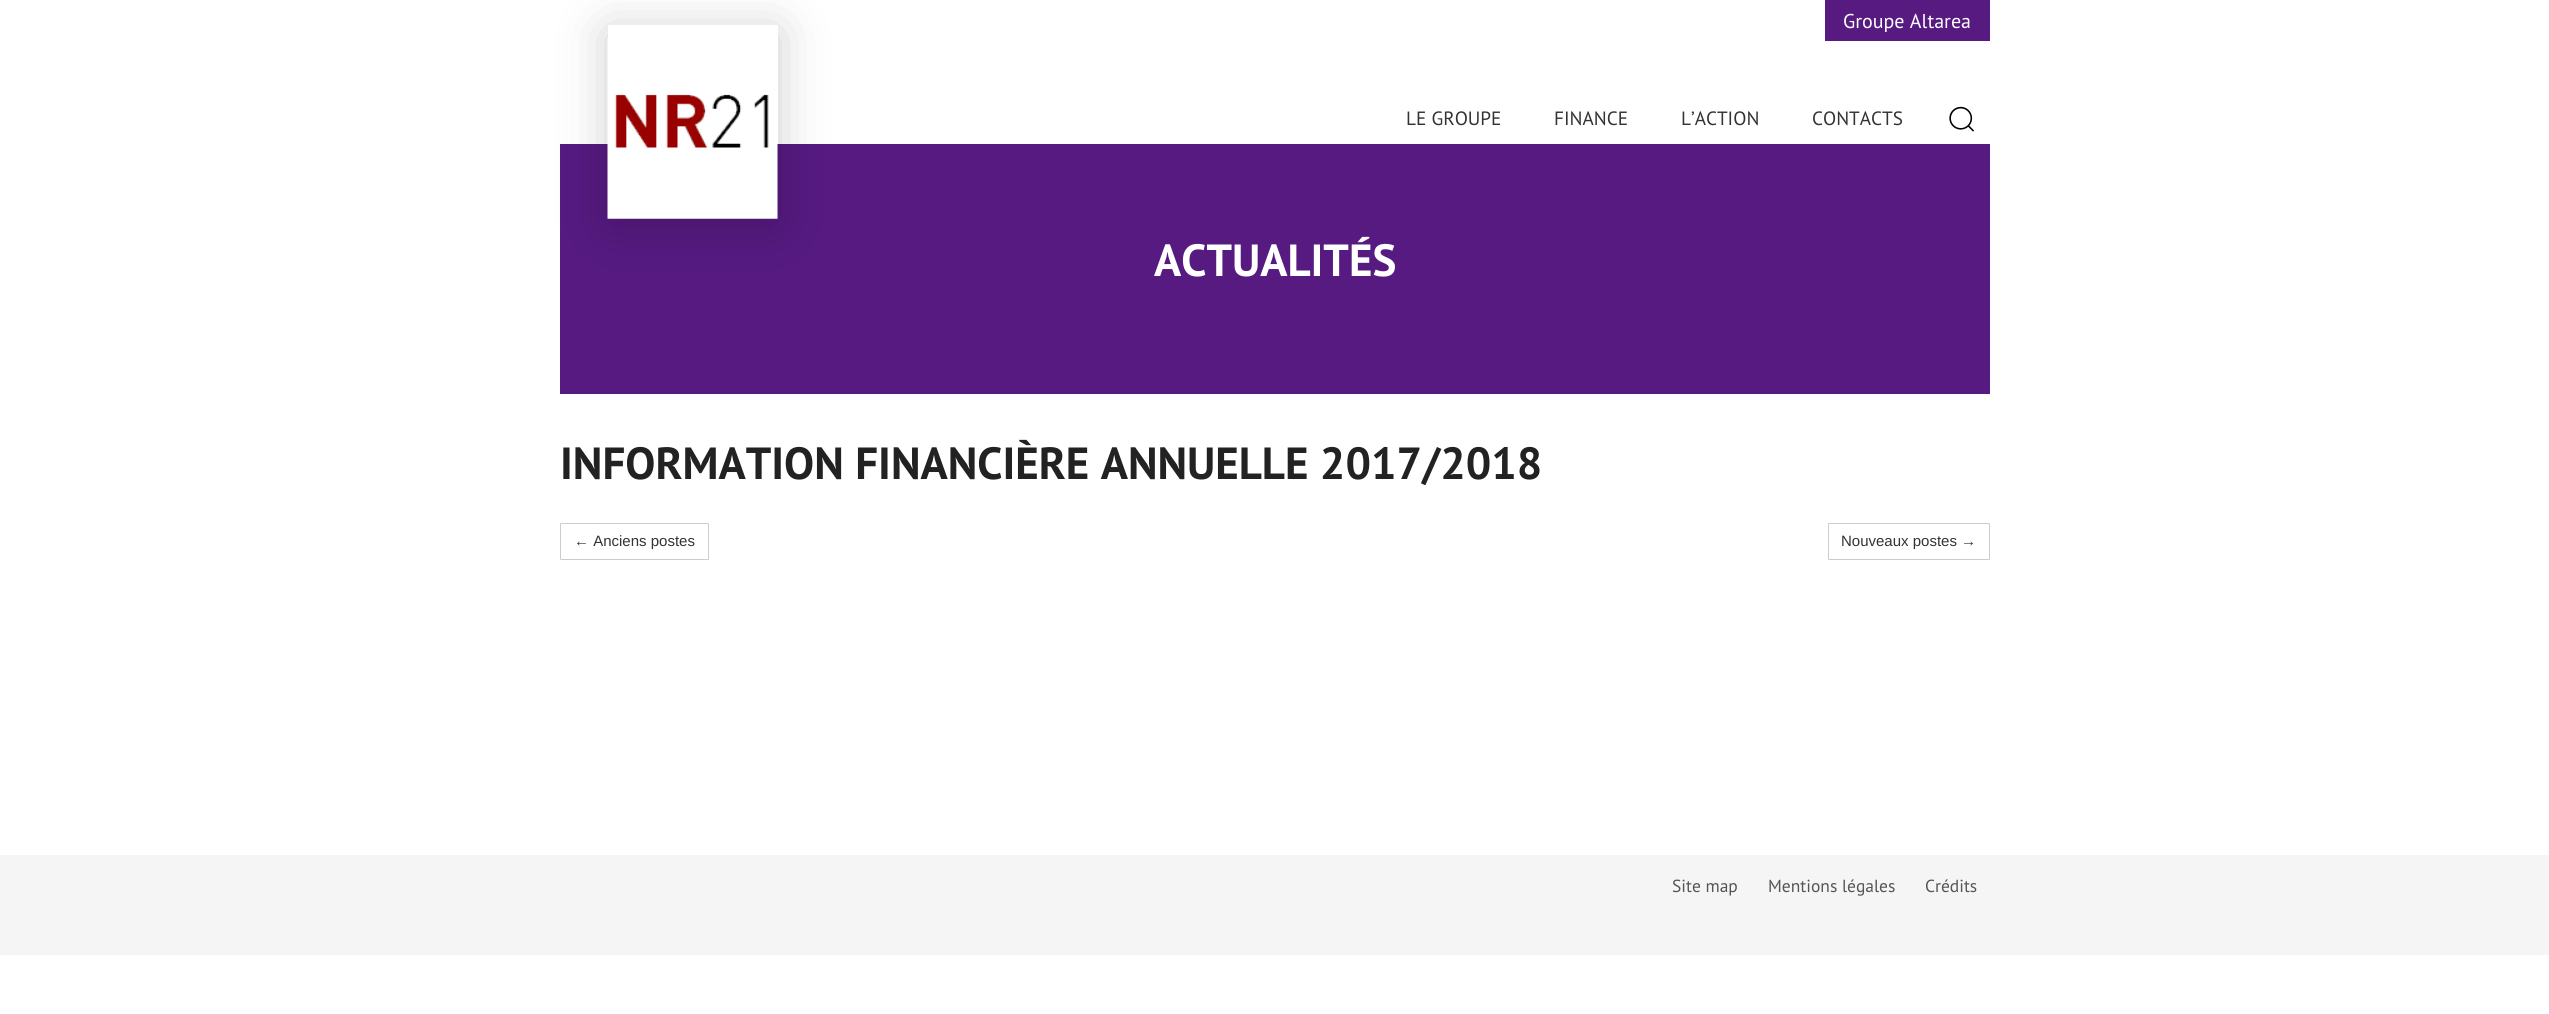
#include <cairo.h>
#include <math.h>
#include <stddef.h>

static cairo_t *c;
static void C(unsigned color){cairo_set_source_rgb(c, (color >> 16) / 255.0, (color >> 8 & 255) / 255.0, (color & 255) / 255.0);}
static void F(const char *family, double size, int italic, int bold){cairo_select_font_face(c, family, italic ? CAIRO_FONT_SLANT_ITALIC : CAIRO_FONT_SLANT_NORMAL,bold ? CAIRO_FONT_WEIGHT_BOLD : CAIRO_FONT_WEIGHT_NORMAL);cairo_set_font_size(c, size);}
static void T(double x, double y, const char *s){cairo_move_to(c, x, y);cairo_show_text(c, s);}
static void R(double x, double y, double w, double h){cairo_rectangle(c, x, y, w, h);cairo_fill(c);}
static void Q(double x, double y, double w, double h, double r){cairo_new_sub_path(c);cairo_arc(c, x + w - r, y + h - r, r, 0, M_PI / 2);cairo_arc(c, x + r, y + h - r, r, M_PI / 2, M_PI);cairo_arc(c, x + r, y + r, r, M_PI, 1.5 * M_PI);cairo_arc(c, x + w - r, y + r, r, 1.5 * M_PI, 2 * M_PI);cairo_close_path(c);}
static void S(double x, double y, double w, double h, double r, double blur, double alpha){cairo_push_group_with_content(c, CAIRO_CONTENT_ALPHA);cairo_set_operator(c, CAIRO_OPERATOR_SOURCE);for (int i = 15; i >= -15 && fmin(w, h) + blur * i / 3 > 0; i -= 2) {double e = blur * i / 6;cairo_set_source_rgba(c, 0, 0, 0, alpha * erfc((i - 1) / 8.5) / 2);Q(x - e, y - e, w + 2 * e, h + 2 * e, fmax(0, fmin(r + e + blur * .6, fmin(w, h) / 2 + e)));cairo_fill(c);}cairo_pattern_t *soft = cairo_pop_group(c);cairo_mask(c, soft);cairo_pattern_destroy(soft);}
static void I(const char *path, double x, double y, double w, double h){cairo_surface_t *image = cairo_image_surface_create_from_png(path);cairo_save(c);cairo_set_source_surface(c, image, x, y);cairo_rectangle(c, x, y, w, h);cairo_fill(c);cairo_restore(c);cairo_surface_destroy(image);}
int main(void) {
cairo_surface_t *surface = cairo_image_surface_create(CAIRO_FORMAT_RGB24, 2549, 1014);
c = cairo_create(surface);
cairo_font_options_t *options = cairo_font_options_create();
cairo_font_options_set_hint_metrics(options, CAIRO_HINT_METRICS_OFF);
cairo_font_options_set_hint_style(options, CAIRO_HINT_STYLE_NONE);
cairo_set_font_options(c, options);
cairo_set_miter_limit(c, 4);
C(0xffffff);
cairo_paint(c);
C(0x561a81);
R(560,144,1430,250);
cairo_save(c);
cairo_set_fill_rule(c,CAIRO_FILL_RULE_EVEN_ODD);
cairo_new_path(c);
cairo_move_to(c,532,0);
cairo_line_to(c,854,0);
cairo_line_to(c,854,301);
cairo_line_to(c,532,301);
cairo_close_path(c);
cairo_move_to(c,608,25);
cairo_line_to(c,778,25);
cairo_line_to(c,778,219);
cairo_line_to(c,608,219);
cairo_close_path(c);
cairo_clip(c);
C(0x000000);
S(608,31,170,194,0,25,.2);
cairo_restore(c);
I("1.png",607,38,171,181);
R(1825,0,165,41);
F("PT Sans",20,0,0);
C(0xffffff);
T(1843,28,"Groupe Altarea");
F("PT Sans",19.25,0,0);
C(0x333333);
T(1406,125,"LE GROUPE");
T(1554,125,"FINANCE");
T(1681,125,"L’ACTION");
T(1812,125,"CONTACTS");
I("2.png",1949,106,26,26);
F("PT Sans",45,0,1);
C(0xffffff);
T(1154,276,"ACTUALITÉS");
C(0x222222);
T(560,479,"INFORMATION FINANCIÈRE ANNUELLE 2017/2018");
Q(560.5,523.5,148,36,.5);
C(0xcccccc);
cairo_set_line_width(c,1);
cairo_stroke(c);
F("Liberation Sans",15,0,0);
C(0x333333);
T(574,546,"← Anciens postes");
Q(1828.5,523.5,161,36,.5);
C(0xcccccc);
cairo_stroke(c);
C(0x333333);
T(1841,546,"Nouveaux postes →");
C(0xf5f5f5);
R(0,855,2549,100);
F("PT Sans",17.5,0,0);
C(0x555555);
T(1672,892,"Site map");
T(1768,892,"Mentions légales");
T(1925,892,"Crédits");
cairo_surface_write_to_png(surface, "o.png");
cairo_font_options_destroy(options);
cairo_destroy(c);
cairo_surface_destroy(surface);
return 0;
}
